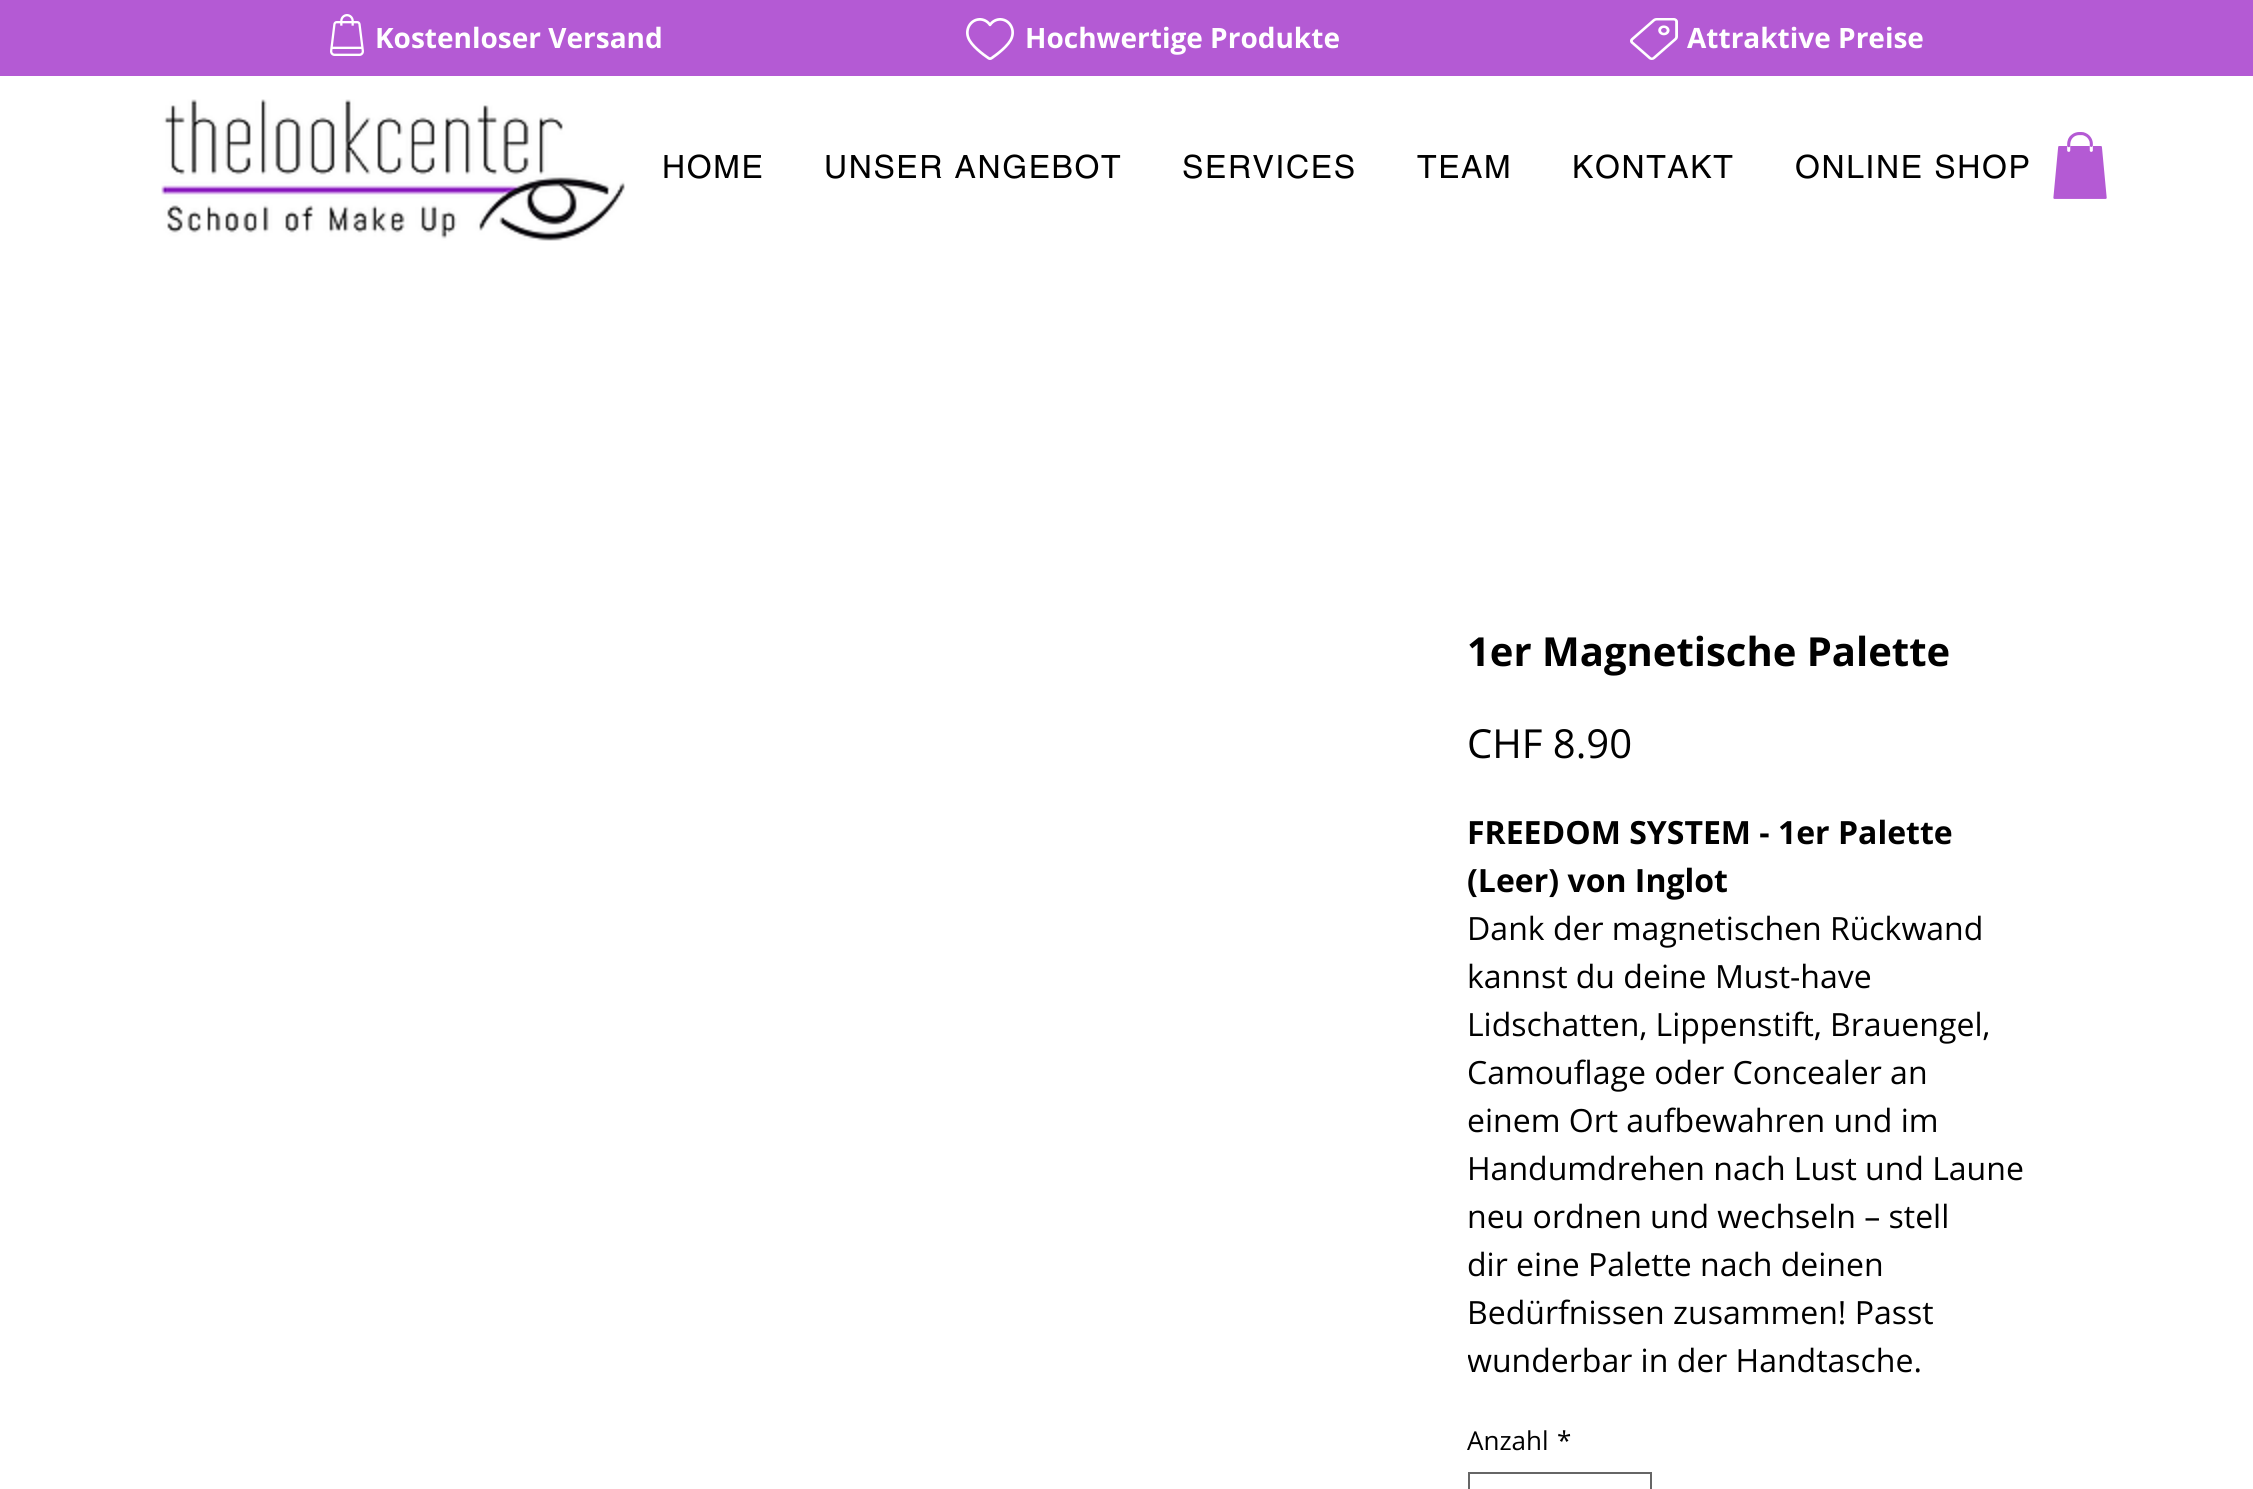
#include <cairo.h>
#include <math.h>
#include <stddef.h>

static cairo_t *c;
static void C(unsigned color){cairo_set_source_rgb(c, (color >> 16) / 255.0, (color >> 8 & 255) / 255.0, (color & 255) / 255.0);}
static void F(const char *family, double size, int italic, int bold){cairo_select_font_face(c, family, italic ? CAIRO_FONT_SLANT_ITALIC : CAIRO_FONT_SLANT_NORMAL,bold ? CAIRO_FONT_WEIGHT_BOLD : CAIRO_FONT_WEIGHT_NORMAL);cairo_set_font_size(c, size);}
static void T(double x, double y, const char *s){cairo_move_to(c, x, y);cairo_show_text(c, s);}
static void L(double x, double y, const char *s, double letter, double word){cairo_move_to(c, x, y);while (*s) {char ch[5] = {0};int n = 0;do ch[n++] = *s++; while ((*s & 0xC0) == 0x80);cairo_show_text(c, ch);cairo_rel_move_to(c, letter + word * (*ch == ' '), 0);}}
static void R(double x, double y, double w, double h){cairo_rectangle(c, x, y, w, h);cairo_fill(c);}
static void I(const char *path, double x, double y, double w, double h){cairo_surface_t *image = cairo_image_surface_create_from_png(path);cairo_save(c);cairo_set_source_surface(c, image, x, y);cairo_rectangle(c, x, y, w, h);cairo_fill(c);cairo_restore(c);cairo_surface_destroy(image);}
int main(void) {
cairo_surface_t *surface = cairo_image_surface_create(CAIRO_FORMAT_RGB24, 2253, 1489);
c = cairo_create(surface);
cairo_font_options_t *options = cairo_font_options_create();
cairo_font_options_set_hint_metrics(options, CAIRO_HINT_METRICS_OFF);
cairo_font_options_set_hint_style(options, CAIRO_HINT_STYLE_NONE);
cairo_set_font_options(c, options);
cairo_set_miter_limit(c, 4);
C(0xffffff);
cairo_paint(c);
C(0xb45ad4);
R(0,0,2253,76);
I("1.png",330,14,34,42);
F("Open Sans",28,0,1);
C(0xffffff);
T(375,48,"Kostenloser Versand");
I("2.png",966,18,48,42);
T(1025,48,"Hochwertige Produkte");
I("3.png",1630,18,48,42);
T(1687,48,"Attraktive Preise");
I("4.png",161,99,464,142);
F("helvetica",32,0,0);
C(0x000000);
L(662,178,"HOME",1.6,0);
L(824,178,"UNSER ANGEBOT",1.6,0);
L(1182,178,"SERVICES",1.6,0);
L(1417,178,"TEAM",1.6,0);
L(1572,178,"KONTAKT",1.6,0);
L(1795,178,"ONLINE SHOP",1.6,0);
I("5.png",2053,132,54,67);
F("Open Sans",40,0,1);
T(1467,666,"1er Magnetische Palette");
F("Open Sans",40,0,0);
T(1467,758,"CHF 8.90");
F("Open Sans",32,0,1);
T(1467,844,"FREEDOM SYSTEM - 1er Palette");
T(1467,892,"(Leer) von Inglot");
F("Open Sans",32,0,0);
T(1467,940,"Dank der magnetischen Rückwand");
T(1467,988,"kannst du deine Must-have");
T(1467,1036,"Lidschatten, Lippenstift, Brauengel,");
T(1467,1084,"Camouflage oder Concealer an");
T(1467,1132,"einem Ort aufbewahren und im");
T(1467,1180,"Handumdrehen nach Lust und Laune");
T(1467,1228,"neu ordnen und wechseln – stell");
T(1467,1276,"dir eine Palette nach deinen");
T(1467,1324,"Bedürfnissen zusammen! Passt");
cairo_save(c);
cairo_rectangle(c,1468,808,560,576);
cairo_clip(c);
T(1467,1372,"wunderbar in der Handtasche.");
cairo_restore(c);
F("Open Sans",26,0,0);
T(1467,1450,"Anzahl");
T(1557,1450,"*");
cairo_rectangle(c,1469,1473,182,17);
C(0x666666);
cairo_stroke(c);
cairo_surface_write_to_png(surface, "o.png");
cairo_font_options_destroy(options);
cairo_destroy(c);
cairo_surface_destroy(surface);
return 0;
}
